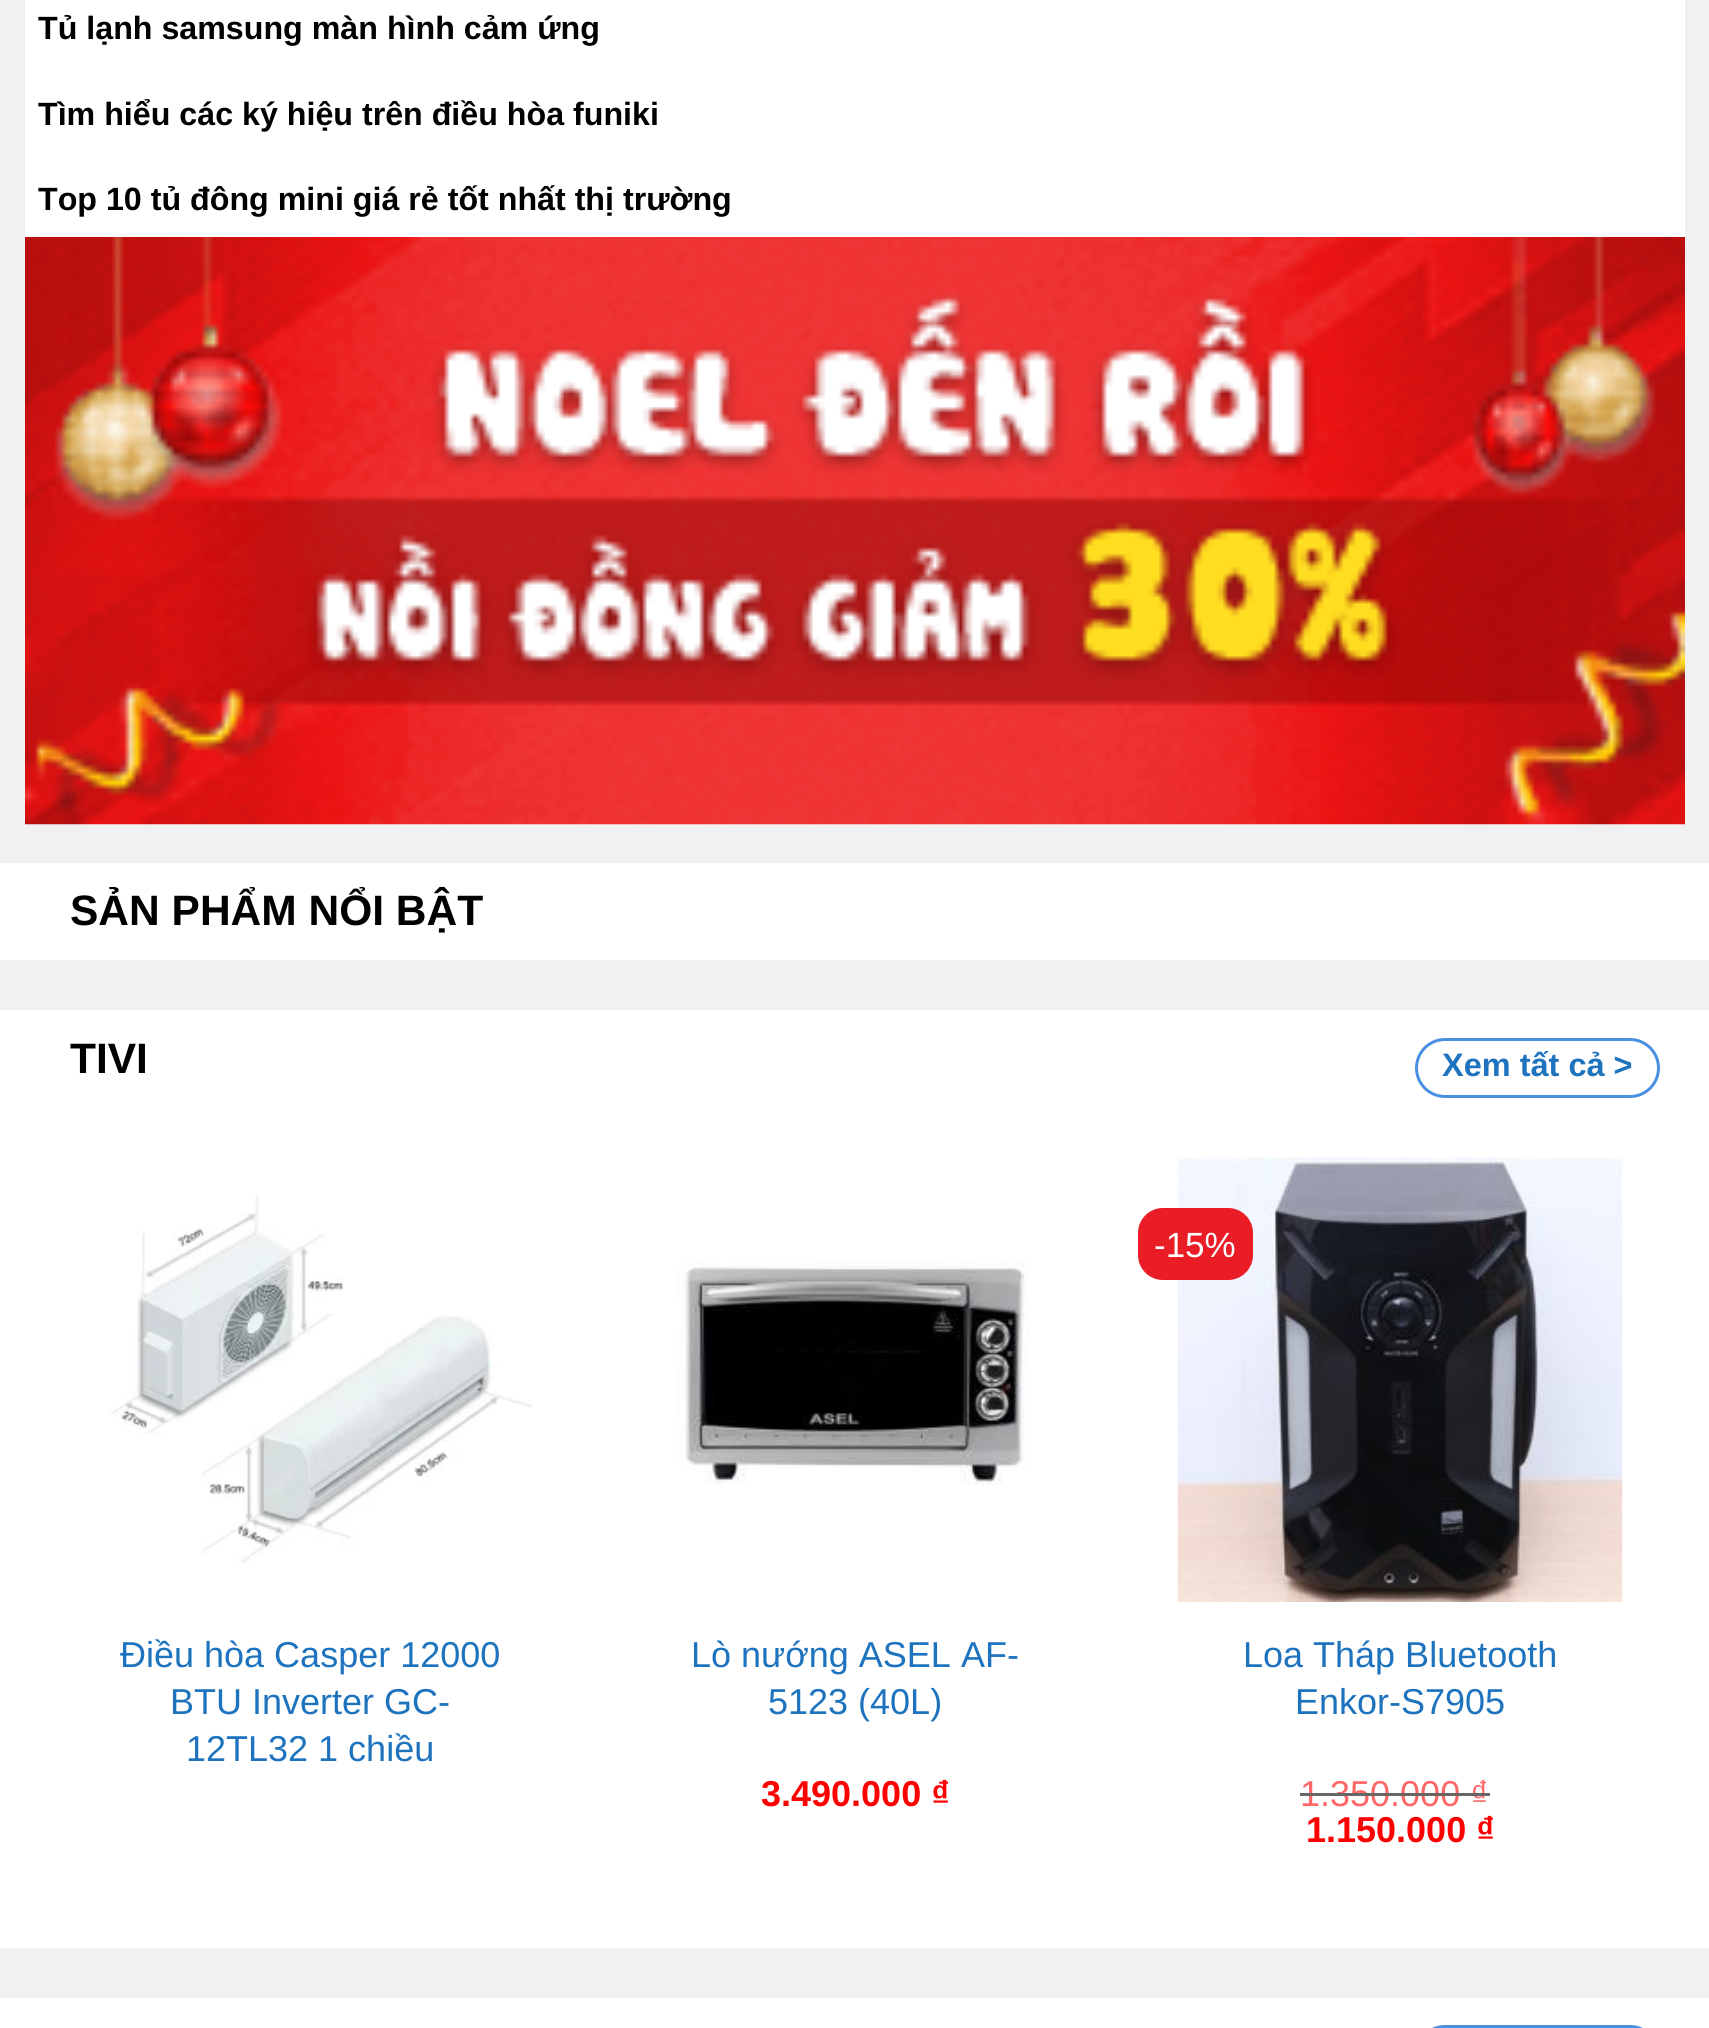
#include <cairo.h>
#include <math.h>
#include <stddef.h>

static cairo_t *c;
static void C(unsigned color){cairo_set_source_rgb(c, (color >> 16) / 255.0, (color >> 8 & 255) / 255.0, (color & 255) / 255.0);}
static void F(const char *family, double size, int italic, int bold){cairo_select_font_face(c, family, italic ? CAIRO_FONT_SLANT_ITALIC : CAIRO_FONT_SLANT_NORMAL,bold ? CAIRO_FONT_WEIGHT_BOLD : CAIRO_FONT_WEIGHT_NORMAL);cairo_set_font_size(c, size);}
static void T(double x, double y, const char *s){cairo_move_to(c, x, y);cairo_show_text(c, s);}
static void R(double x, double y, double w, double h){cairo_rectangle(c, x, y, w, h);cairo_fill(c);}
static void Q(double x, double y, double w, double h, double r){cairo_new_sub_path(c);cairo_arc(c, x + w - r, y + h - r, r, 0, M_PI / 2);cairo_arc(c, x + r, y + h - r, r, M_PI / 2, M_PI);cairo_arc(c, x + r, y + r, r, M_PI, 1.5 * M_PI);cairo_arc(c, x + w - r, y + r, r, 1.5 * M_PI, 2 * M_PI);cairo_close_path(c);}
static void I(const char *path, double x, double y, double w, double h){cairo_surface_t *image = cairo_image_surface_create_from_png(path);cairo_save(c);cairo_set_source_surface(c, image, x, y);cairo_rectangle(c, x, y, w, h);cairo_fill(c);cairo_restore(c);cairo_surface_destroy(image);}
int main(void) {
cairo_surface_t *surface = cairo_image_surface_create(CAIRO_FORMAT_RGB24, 1709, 2028);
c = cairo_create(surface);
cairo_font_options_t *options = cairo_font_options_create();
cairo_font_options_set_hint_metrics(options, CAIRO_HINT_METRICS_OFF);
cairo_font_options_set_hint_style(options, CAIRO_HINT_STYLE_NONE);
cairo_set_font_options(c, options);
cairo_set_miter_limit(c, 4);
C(0xf1f1f1);
cairo_paint(c);
C(0xffffff);
R(25,0,1660,237);
F("Liberation Sans",32.2,0,1);
C(0x000000);
T(38,39,"Tủ lạnh samsung màn hình cảm ứng");
T(38,125,"Tìm hiểu các ký hiệu trên điều hòa funiki");
T(38,210,"Top 10 tủ đông mini giá rẻ tốt nhất thị trường");
I("1.png",25,237,1660,588);
C(0xffffff);
R(0,863,1709,97);
F("Liberation Sans",42.5,0,1);
C(0x000000);
T(70,925,"SẢN PHẨM NỔI BẬT");
C(0xffffff);
R(0,1010,1709,938);
C(0x000000);
T(70,1073,"TIVI");
Q(1416.5,1039.5,242,57,28.5);
C(0x4a90e2);
cairo_set_line_width(c,3);
cairo_stroke(c);
F("Liberation Sans",32.5,0,1);
C(0x1e73be);
T(1442,1076,"Xem tất cả >");
I("2.png",110,1194,422,369);
F("Liberation Sans",36,0,0);
T(120,1667,"Điều hòa Casper 12000");
T(170,1714,"BTU Inverter GC-");
T(186,1761,"12TL32 1 chiều");
I("3.png",677,1260,354,225);
T(691,1667,"Lò nướng ASEL AF-");
T(768,1714,"5123 (40L)");
F("Liberation Sans",36,0,1);
C(0xff0000);
T(761,1806,"3.490.000 ₫");
I("4.png",1177,1157,446,445);
C(0xea1c26);
Q(1138,1208,115,72,25);
cairo_fill(c);
F("Liberation Sans",35,0,0);
C(0xffffff);
T(1154,1257,"-15%");
F("Liberation Sans",36,0,0);
C(0x1e73be);
T(1243,1667,"Loa Tháp Bluetooth");
T(1295,1714,"Enkor-S7905");
C(0xff6666);
T(1300,1806,"1.350.000 ₫");
C(0x666666);
R(1300,1793,190,3);
F("Liberation Sans",36,0,1);
C(0xff0000);
T(1306,1842,"1.150.000 ₫");
C(0xffffff);
R(0,1998,1709,30);
Q(1416.5,2026.5,242,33,28.5);
C(0x4a90e2);
cairo_stroke(c);
cairo_surface_write_to_png(surface, "o.png");
cairo_font_options_destroy(options);
cairo_destroy(c);
cairo_surface_destroy(surface);
return 0;
}
